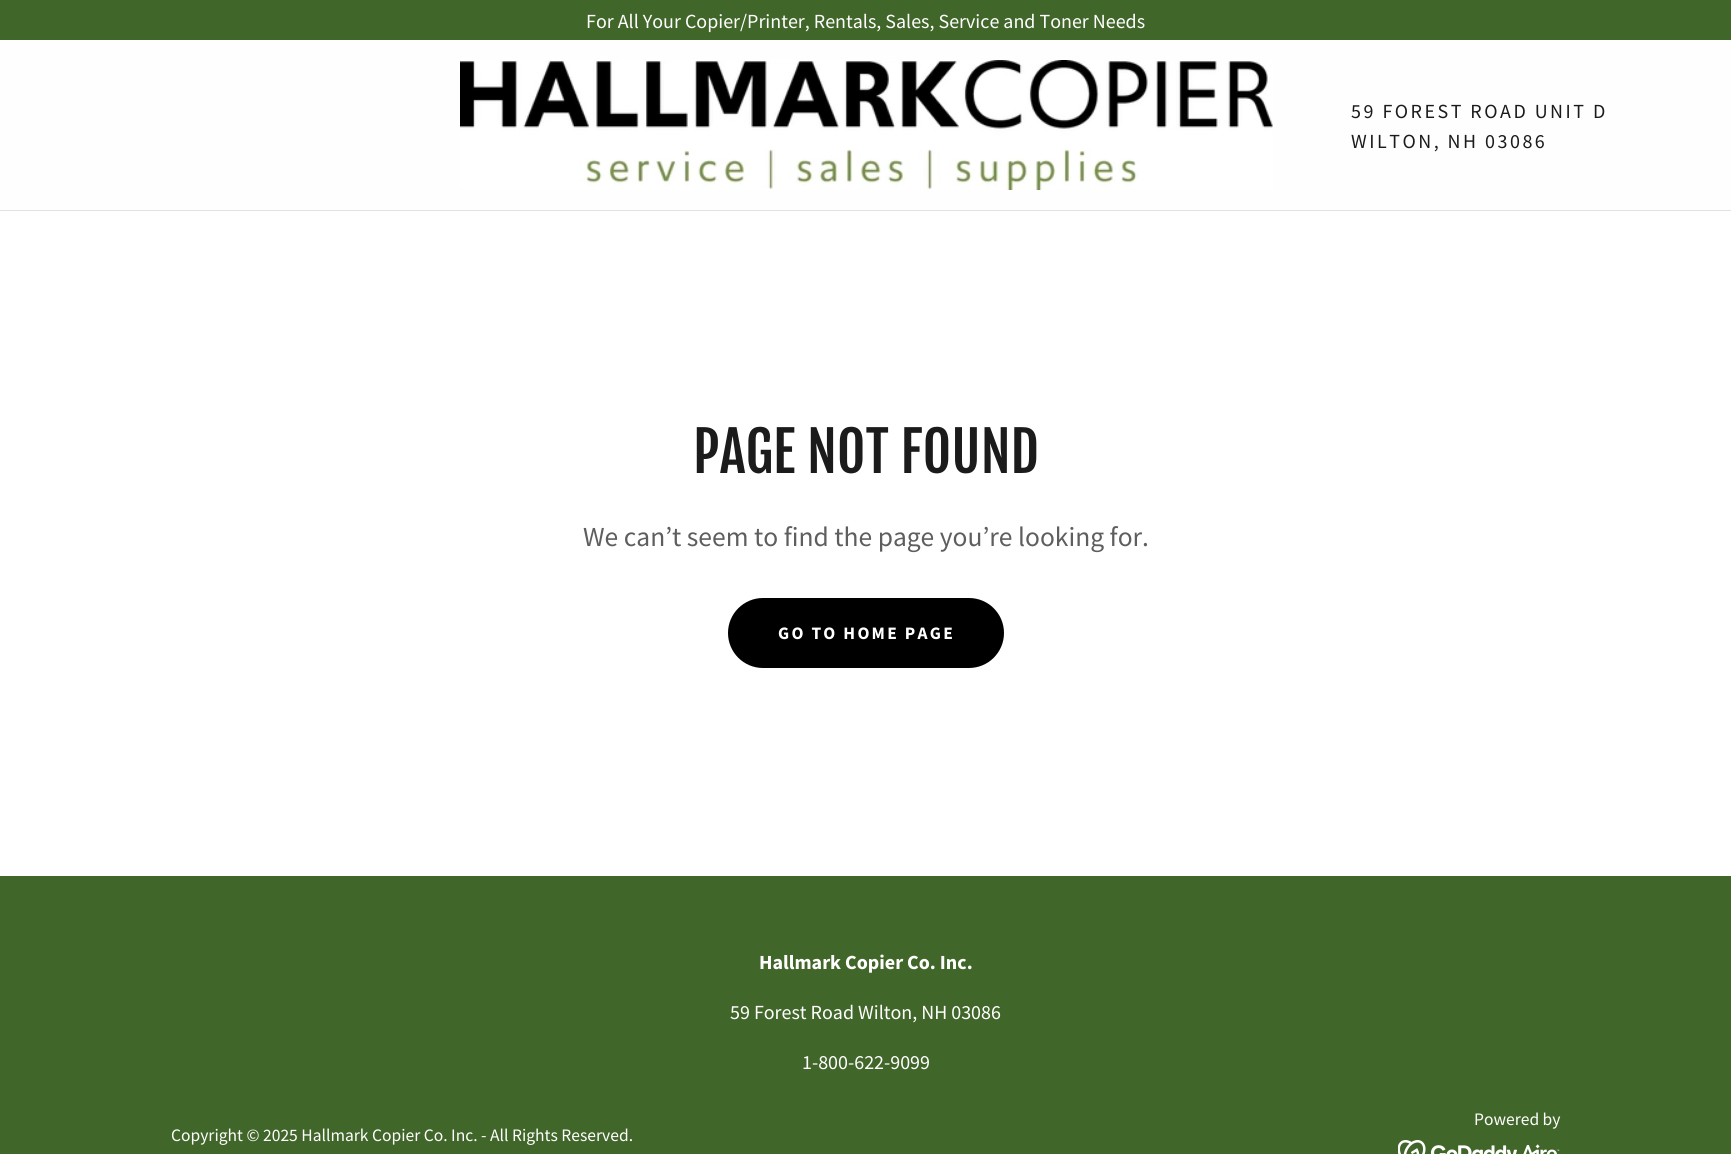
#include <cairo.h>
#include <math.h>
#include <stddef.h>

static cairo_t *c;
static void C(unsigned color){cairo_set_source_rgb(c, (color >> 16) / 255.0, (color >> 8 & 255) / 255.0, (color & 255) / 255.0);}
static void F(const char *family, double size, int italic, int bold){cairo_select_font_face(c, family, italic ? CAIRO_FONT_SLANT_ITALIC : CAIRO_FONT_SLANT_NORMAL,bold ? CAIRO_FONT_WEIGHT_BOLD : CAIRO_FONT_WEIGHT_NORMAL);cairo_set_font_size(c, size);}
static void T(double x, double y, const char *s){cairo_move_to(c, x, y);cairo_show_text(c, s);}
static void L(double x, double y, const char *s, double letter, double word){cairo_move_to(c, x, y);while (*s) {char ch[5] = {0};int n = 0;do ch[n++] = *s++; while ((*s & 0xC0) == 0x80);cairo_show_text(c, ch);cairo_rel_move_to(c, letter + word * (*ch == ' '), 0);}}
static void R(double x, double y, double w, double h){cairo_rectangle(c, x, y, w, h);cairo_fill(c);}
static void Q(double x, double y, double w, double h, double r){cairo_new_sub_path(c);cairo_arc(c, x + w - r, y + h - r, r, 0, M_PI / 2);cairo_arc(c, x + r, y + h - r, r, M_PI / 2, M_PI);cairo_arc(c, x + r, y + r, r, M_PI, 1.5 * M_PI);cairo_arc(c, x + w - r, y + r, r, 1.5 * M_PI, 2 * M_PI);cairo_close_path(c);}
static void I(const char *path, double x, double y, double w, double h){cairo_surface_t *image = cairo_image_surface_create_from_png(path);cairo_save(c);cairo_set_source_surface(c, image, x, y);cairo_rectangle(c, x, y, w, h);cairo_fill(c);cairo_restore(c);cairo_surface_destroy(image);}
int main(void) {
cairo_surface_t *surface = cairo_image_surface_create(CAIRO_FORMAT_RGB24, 1731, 1154);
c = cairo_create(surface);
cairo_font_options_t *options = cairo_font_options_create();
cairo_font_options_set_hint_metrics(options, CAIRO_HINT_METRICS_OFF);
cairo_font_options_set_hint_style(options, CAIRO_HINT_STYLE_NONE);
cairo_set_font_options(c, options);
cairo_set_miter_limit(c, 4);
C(0x416629);
cairo_paint(c);
F("Source Sans Pro",20,0,0);
C(0xffffff);
T(586,28,"For All Your Copier/Printer, Rentals, Sales, Service and Toner Needs");
C(0xfefefe);
R(0,40,1731,170);
I("1.png",460,60,813,130);
C(0x1b1b1b);
L(1351,118,"59 FOREST ROAD UNIT D",2.5,0);
L(1351,148,"WILTON, NH 03086",2.5,0);
C(0xe2e2e2);
R(0,210,1731,1);
C(0xffffff);
R(0,211,1731,665);
F("Fjalla One",55,0,0);
C(0x1b1b1b);
T(693,473,"PAGE NOT FOUND");
F("Source Sans Pro",27.5,0,0);
C(0x5e5e5e);
T(583,546,"We can’t seem to find the page you’re looking for.");
C(0x000000);
Q(728,598,276,70,35);
cairo_fill(c);
F("Source Sans Pro",17.5,0,1);
C(0xffffff);
L(778,639,"GO TO HOME PAGE",2.25,0);
F("Source Sans Pro",20,0,1);
T(759,969,"Hallmark Copier Co. Inc.");
F("Source Sans Pro",20,0,0);
T(730,1019,"59 Forest Road Wilton, NH 03086");
T(802,1069,"1-800-622-9099");
F("Source Sans Pro",17.5,0,0);
T(1474,1125,"Powered by");
I("2.png",1398,1140,162,14);
T(171,1141,"Copyright © 2025 Hallmark Copier Co. Inc. - All Rights Reserved.");
cairo_surface_write_to_png(surface, "o.png");
cairo_font_options_destroy(options);
cairo_destroy(c);
cairo_surface_destroy(surface);
return 0;
}
